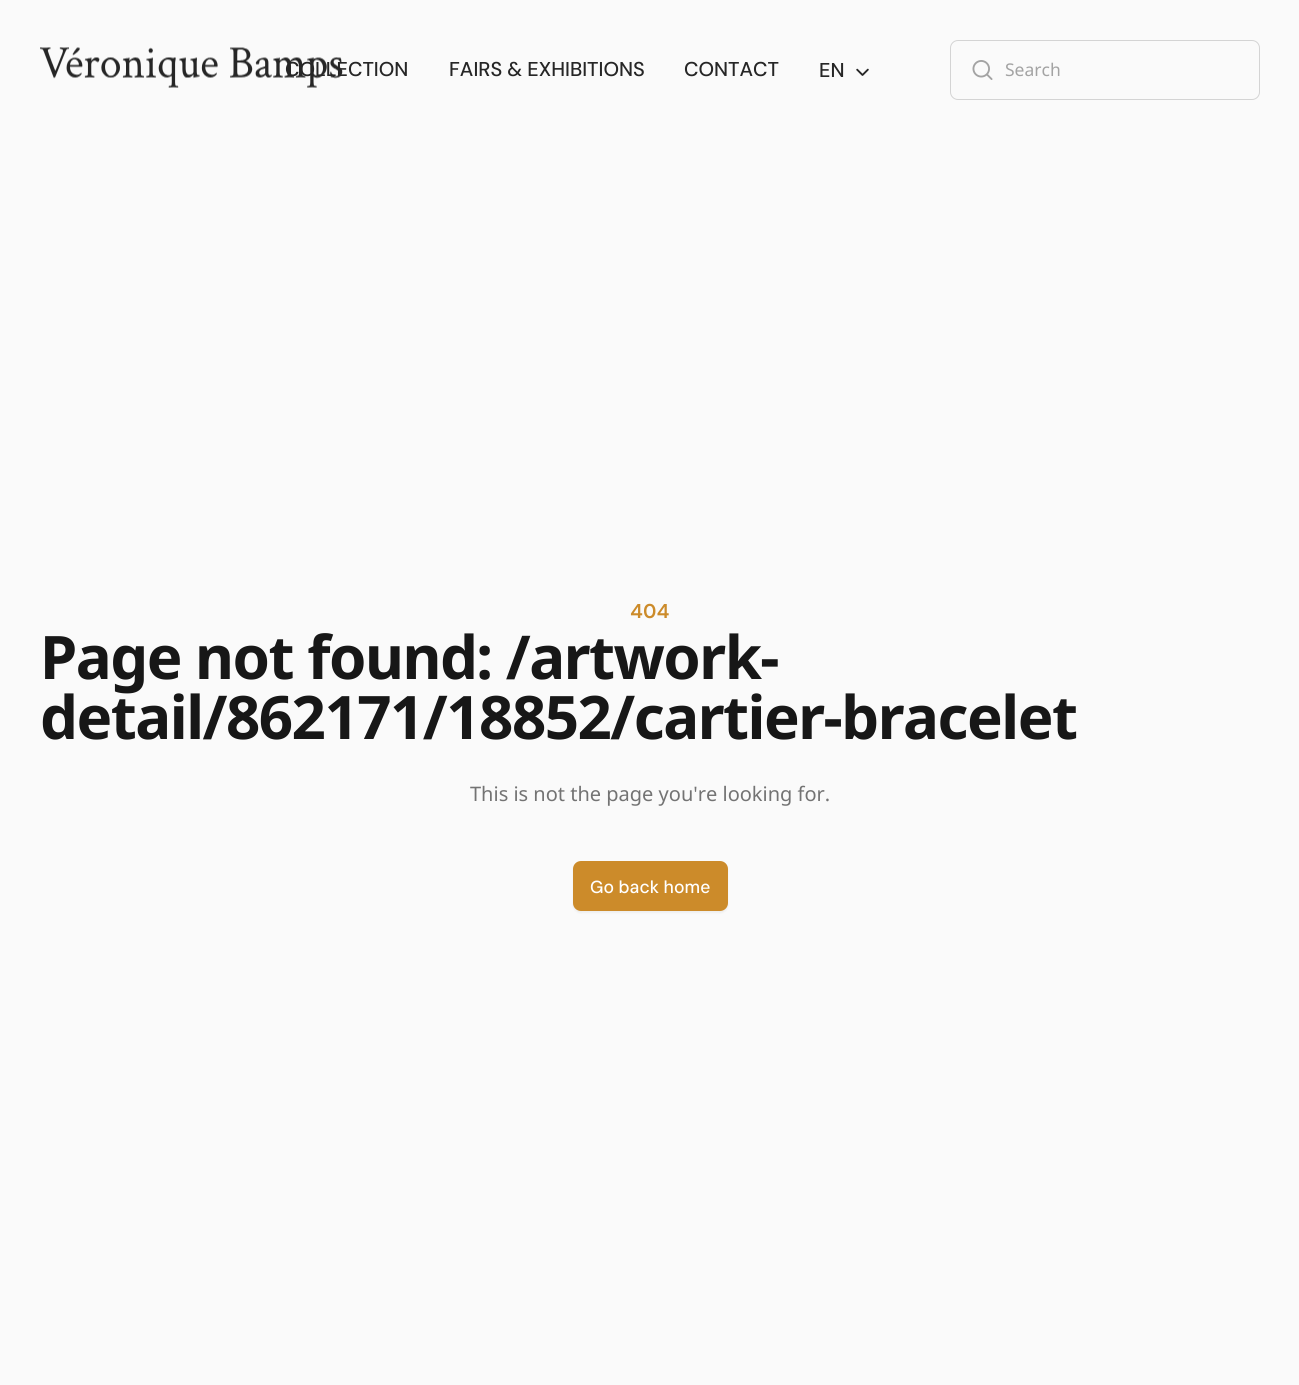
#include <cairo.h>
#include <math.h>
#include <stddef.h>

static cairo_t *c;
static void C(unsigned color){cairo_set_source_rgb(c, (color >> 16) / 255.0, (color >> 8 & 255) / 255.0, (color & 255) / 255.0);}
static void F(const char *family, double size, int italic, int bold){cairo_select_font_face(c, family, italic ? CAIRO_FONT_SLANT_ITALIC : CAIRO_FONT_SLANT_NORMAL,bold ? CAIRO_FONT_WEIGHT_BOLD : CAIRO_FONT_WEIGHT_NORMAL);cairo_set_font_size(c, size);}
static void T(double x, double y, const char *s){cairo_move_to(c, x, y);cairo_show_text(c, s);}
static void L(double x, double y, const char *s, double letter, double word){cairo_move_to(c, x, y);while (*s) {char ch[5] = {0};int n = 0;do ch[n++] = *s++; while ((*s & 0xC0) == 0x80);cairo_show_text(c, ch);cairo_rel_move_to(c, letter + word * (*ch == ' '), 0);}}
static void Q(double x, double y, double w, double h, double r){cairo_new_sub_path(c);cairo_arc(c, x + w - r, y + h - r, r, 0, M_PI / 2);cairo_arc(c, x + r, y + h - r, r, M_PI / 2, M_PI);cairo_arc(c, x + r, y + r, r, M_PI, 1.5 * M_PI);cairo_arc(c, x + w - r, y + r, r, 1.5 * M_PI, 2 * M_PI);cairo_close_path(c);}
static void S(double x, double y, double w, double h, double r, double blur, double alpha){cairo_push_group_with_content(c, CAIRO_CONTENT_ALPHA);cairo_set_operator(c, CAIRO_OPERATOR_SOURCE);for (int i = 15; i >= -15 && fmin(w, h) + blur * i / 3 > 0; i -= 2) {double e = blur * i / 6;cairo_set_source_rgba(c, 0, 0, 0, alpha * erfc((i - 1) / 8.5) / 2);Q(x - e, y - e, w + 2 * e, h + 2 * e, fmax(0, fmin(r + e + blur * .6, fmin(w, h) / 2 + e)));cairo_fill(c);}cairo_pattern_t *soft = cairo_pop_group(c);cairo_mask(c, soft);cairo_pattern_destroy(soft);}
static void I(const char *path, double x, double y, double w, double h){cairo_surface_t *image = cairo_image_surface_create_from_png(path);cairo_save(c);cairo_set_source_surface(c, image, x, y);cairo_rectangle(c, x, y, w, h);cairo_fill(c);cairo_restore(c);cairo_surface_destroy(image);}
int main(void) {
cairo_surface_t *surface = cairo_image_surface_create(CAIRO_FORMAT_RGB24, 1299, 1385);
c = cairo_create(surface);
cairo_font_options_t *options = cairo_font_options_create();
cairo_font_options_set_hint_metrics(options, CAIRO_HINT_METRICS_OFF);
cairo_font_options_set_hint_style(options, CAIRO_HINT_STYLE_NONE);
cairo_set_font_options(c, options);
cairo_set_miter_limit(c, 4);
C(0xfafafa);
cairo_paint(c);
I("1.png",40,47,303,41);
F("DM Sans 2 Medium",20,0,0);
C(0x262626);
T(285,76,"COLLECTION");
T(449,76,"FAIRS & EXHIBITIONS");
T(684,76,"CONTACT");
T(819,77,"EN");
I("2.png",856,68,13,8);
Q(950.5,40.5,309,59,7.5);
C(0xd4d4d4);
cairo_set_line_width(c,1);
cairo_stroke(c);
I("3.png",972,60,21,20);
F("Noto Sans",17.5,0,0);
C(0xa3a3a3);
T(1005,76,"Search");
F("DM Sans SemiBold",20,0,0);
C(0xcc8b2a);
T(630,618,"404");
F("Noto Sans",60,0,1);
C(0x171717);
L(40,679,"Page not found: /artwork-",-1.5,0);
L(40,739,"detail/862171/18852/cartier-bracelet",-1.5,0);
F("Noto Sans",20,0,0);
C(0x737373);
T(470,801,"This is not the page you're looking for.");
C(0x000000);
S(573,863,155,50,8,1,.05);
C(0xcc8b2a);
Q(573,861,155,50,8);
cairo_fill(c);
F("DM Sans Medium",17.5,0,0);
C(0xffffff);
T(590,893,"Go back home");
cairo_surface_write_to_png(surface, "o.png");
cairo_font_options_destroy(options);
cairo_destroy(c);
cairo_surface_destroy(surface);
return 0;
}
